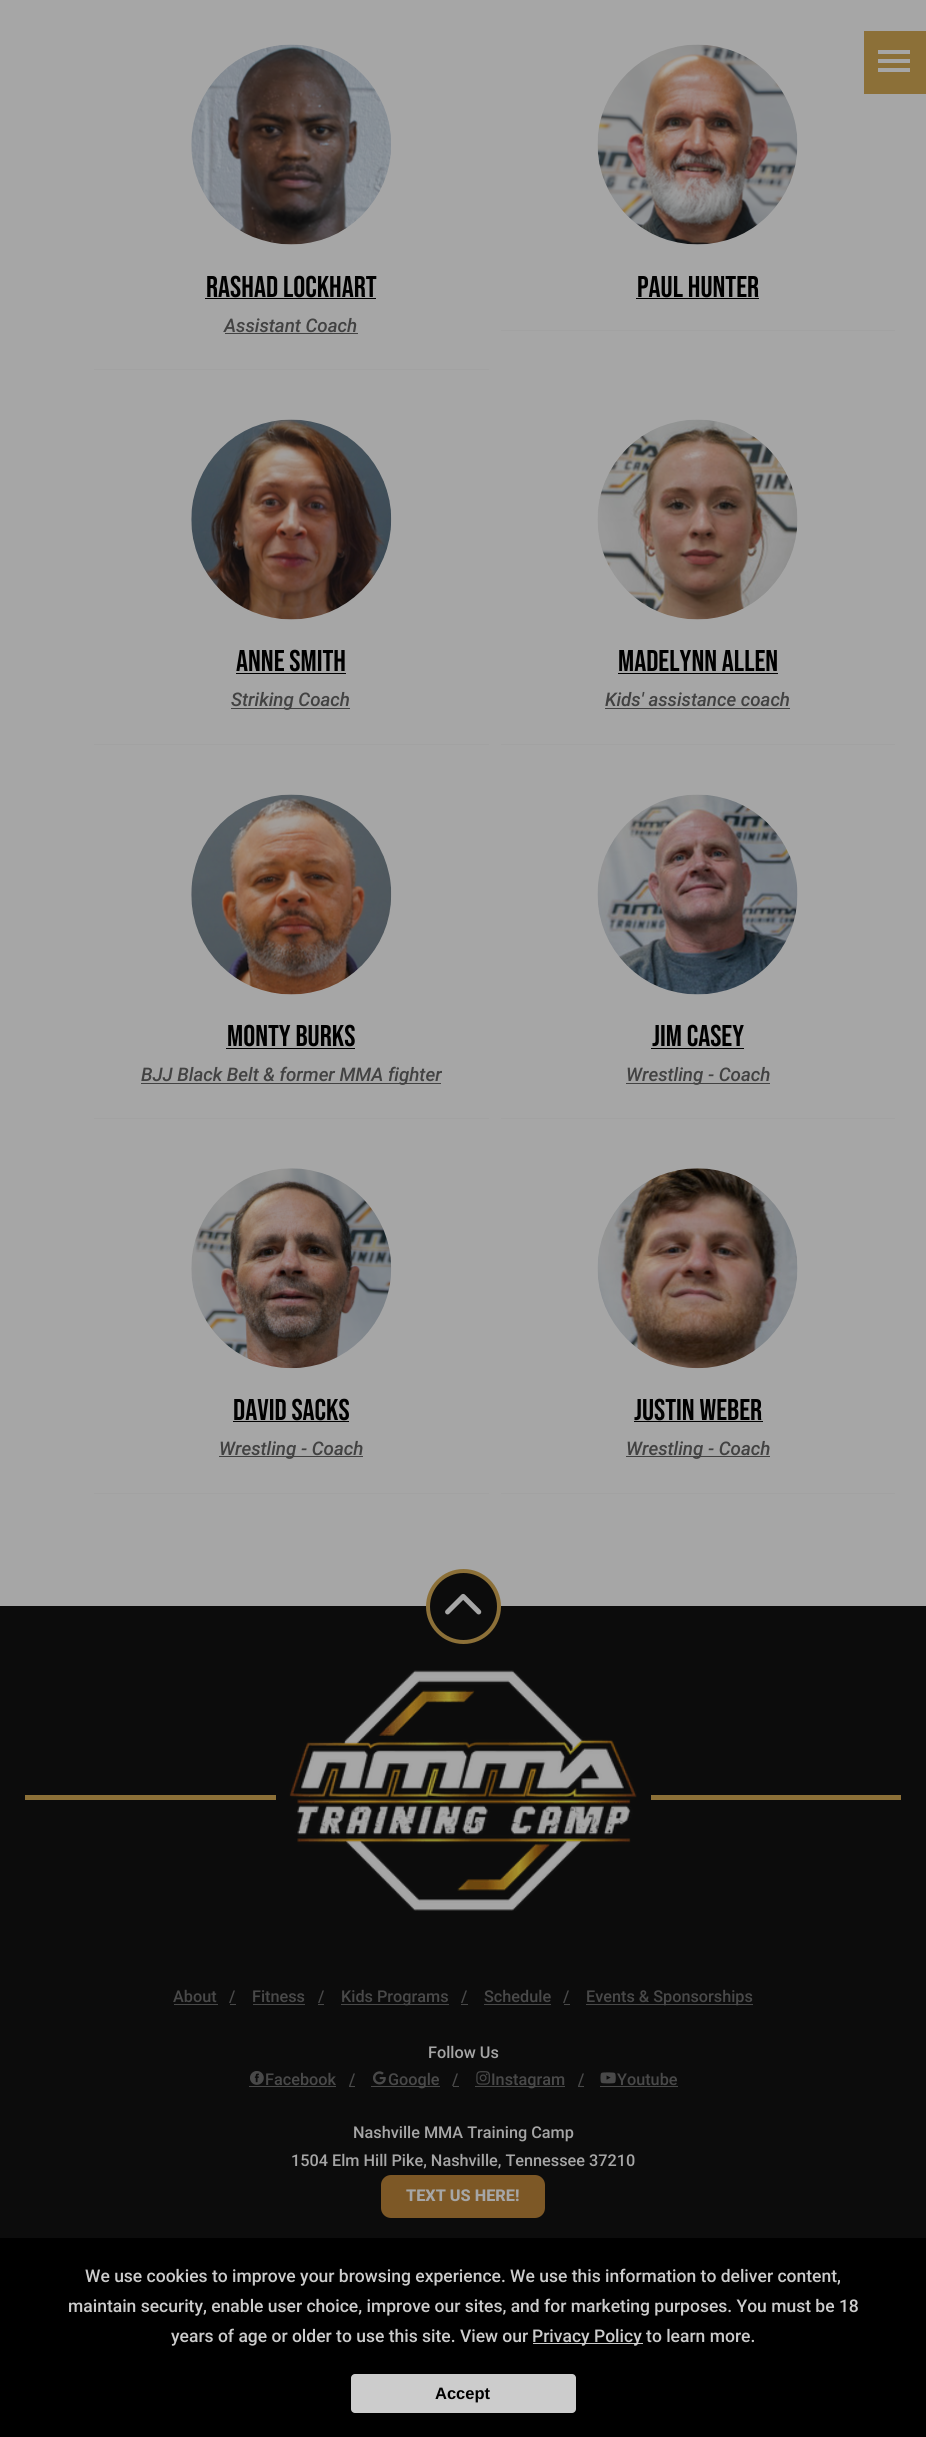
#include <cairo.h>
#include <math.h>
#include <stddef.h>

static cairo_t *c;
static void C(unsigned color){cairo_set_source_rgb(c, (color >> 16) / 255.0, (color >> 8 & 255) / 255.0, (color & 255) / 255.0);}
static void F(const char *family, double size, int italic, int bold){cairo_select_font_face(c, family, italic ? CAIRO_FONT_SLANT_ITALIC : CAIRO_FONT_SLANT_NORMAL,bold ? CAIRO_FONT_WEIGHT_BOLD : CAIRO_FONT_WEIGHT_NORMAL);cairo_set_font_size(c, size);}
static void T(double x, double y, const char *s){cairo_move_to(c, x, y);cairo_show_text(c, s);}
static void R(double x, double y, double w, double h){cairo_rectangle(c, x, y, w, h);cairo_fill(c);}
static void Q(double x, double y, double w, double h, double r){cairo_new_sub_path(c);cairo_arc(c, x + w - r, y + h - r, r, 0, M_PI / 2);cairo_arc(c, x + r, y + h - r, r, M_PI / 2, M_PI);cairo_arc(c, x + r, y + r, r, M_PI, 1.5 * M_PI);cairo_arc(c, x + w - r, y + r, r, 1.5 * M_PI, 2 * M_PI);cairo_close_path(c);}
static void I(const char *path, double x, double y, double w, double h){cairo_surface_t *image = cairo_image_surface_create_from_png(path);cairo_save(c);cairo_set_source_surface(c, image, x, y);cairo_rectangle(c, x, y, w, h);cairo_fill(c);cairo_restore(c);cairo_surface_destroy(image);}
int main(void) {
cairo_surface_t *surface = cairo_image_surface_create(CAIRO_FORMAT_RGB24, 926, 2437);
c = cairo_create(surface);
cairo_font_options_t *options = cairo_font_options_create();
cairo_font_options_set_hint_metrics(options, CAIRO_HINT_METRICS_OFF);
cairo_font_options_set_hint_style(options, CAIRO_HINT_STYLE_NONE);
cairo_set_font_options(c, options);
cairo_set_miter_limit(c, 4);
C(0xa6a6a6);
cairo_paint(c);
C(0x8c7038);
R(864,31,62,63);
C(0xa6a6a6);
R(878,50,32,4);
R(878,59,32,4);
R(878,68,32,4);
C(0xa2a2a2);
R(94,369,395,1);
I("1.png",191,44,200,201);
F("Bebas Neue",30,0,0);
C(0x000000);
T(206,297,"Rashad Lockhart");
R(205,298,171,1);
F("Roboto Medium",18.75,1,0);
C(0x424242);
T(224,332,"Assistant Coach");
R(225,333,133,1);
C(0xa2a2a2);
R(501,330,394,1);
I("2.png",597,44,201,201);
F("Bebas Neue",30,0,0);
C(0x000000);
T(637,297,"Paul Hunter");
R(636,298,123,1);
C(0xa2a2a2);
R(94,744,395,1);
I("3.png",191,419,201,201);
C(0x000000);
T(236,671,"Anne Smith");
R(236,673,110,1);
C(0x424242);
R(231,708,119,1);
F("Roboto Medium",18.75,1,0);
T(231,706,"Striking Coach");
C(0xa2a2a2);
R(501,744,394,1);
I("4.png",597,419,201,201);
F("Bebas Neue",30,0,0);
C(0x000000);
T(618,671,"Madelynn Allen");
R(618,673,160,1);
F("Roboto Medium",18.75,1,0);
C(0x424242);
T(605,706,"Kids' assistance coach");
R(605,708,185,1);
C(0xa2a2a2);
R(94,1118,395,1);
I("5.png",191,794,201,201);
F("Bebas Neue",30,0,0);
C(0x000000);
T(227,1046,"Monty Burks");
R(226,1048,129,1);
C(0x424242);
R(141,1083,300,1);
F("Roboto Medium",18.75,1,0);
T(141,1081,"BJJ Black Belt & former MMA fighter");
C(0xa2a2a2);
R(501,1118,394,1);
I("6.png",597,794,201,201);
F("Bebas Neue",30,0,0);
C(0x000000);
T(652,1046,"Jim Casey");
R(651,1048,93,1);
C(0x424242);
R(626,1083,144,1);
F("Roboto Medium",18.75,1,0);
T(626,1081,"Wrestling - Coach");
C(0xa2a2a2);
R(94,1493,395,1);
I("7.png",191,1168,201,201);
F("Bebas Neue",30,0,0);
C(0x000000);
T(233,1420,"David Sacks");
R(233,1421,116,1);
C(0x424242);
R(219,1456,144,1);
F("Roboto Medium",18.75,1,0);
T(219,1455,"Wrestling - Coach");
C(0xa2a2a2);
R(501,1493,394,1);
I("8.png",597,1168,201,201);
F("Bebas Neue",30,0,0);
C(0x000000);
T(634,1420,"Justin Weber");
R(634,1421,129,1);
C(0x424242);
R(626,1456,144,1);
F("Roboto Medium",18.75,1,0);
T(626,1455,"Wrestling - Coach");
C(0x0c0c0c);
R(0,1606,926,632);
cairo_new_path(c);
cairo_arc(c,463.5,1606.5,35.5,0,2 * M_PI);
cairo_fill_preserve(c);
C(0x8c7038);
cairo_set_line_width(c,4);
cairo_stroke(c);
I("9.png",445,1593,37,22);
R(25,1795,876,5);
C(0x0c0c0c);
R(276,1795,375,5);
I("10.png",289,1670,348,241);
F("Roboto Medium",16.25,0,0);
C(0x494949);
T(173,2002,"About");
R(174,2004,44,1);
T(229,2002,"/");
R(230,2004,6,1);
T(252,2002,"Fitness");
R(253,2004,52,1);
T(318,2002,"/");
R(318,2004,6,1);
R(341,2004,108,1);
T(341,2002,"Kids Programs");
T(461,2002,"/");
R(461,2004,7,1);
T(484,2002,"Schedule");
R(484,2004,67,1);
T(563,2002,"/");
R(564,2004,6,1);
R(586,2004,167,1);
T(586,2002,"Events & Sponsorships");
C(0xa6a6a6);
T(428,2058,"Follow Us");
I("11.png",250,2071,14,14);
C(0x494949);
T(265,2085,"Facebook");
R(249,2086,87,1);
T(349,2085,"/");
R(349,2086,6,1);
I("12.png",373,2071,13,14);
R(371,2086,69,1);
T(388,2085,"Google");
T(452,2085,"/");
R(453,2086,6,1);
I("13.png",476,2071,14,14);
R(475,2086,90,1);
T(491,2085,"Instagram");
T(578,2085,"/");
R(578,2086,6,1);
I("14.png",600,2072,16,12);
T(617,2085,"Youtube");
R(600,2086,78,1);
C(0xa6a6a6);
T(353,2138,"Nashville MMA Training Camp");
T(291,2166,"1504 Elm Hill Pike, Nashville, Tennessee 37210");
C(0x7d5826);
Q(381,2175,164,43,10);
cairo_fill(c);
F("Roboto ExtraBold",16.25,0,0);
C(0xa6a6a6);
T(406,2201,"TEXT US HERE!");
C(0x000000);
R(0,2238,926,199);
F("Roboto Medium",17.5,0,0);
C(0xcccccc);
T(85,2282,"We use cookies to improve your browsing experience. We use this information to deliver content,");
T(68,2312,"maintain security, enable user choice, improve our sites, and for marketing purposes. You must be 18");
T(171,2342,"years of age or older to use this site. View our");
R(533,2343,110,1);
T(532,2342,"Privacy Policy to learn more.");
Q(351,2374,225,39,4);
cairo_fill(c);
F("Liberation Sans",16.5,0,1);
C(0x000000);
T(435,2399,"Accept");
cairo_surface_write_to_png(surface, "o.png");
cairo_font_options_destroy(options);
cairo_destroy(c);
cairo_surface_destroy(surface);
return 0;
}
